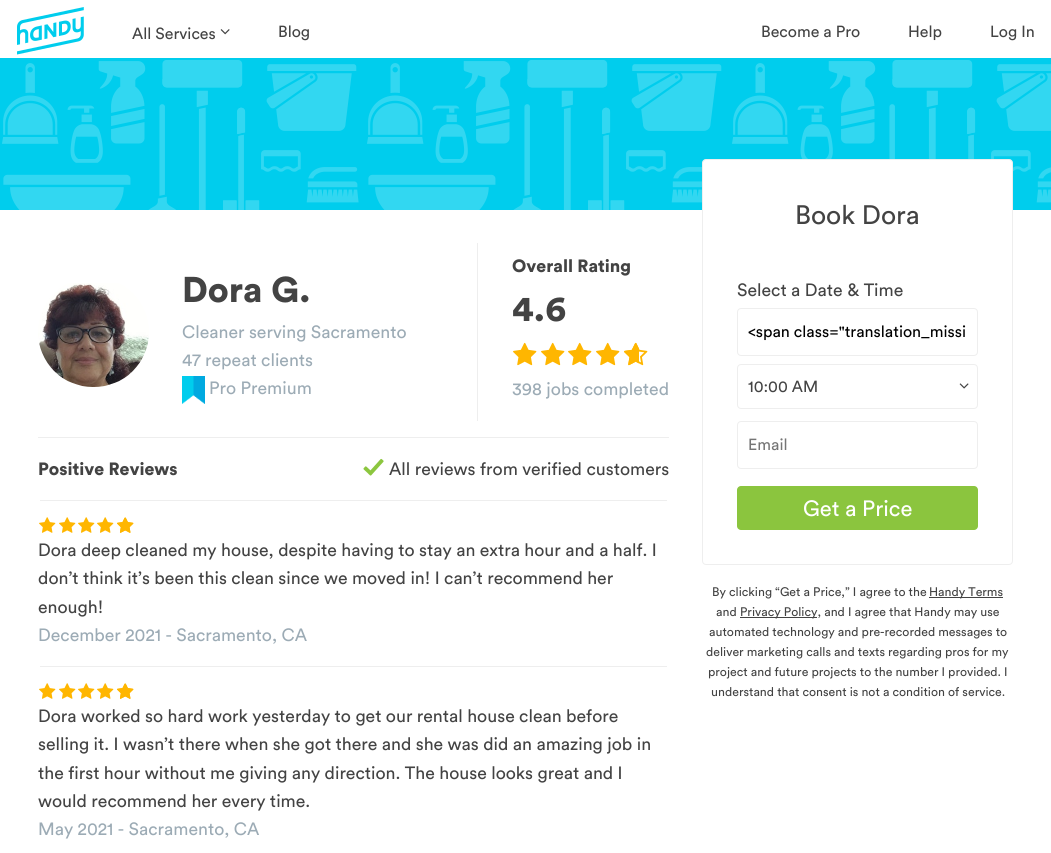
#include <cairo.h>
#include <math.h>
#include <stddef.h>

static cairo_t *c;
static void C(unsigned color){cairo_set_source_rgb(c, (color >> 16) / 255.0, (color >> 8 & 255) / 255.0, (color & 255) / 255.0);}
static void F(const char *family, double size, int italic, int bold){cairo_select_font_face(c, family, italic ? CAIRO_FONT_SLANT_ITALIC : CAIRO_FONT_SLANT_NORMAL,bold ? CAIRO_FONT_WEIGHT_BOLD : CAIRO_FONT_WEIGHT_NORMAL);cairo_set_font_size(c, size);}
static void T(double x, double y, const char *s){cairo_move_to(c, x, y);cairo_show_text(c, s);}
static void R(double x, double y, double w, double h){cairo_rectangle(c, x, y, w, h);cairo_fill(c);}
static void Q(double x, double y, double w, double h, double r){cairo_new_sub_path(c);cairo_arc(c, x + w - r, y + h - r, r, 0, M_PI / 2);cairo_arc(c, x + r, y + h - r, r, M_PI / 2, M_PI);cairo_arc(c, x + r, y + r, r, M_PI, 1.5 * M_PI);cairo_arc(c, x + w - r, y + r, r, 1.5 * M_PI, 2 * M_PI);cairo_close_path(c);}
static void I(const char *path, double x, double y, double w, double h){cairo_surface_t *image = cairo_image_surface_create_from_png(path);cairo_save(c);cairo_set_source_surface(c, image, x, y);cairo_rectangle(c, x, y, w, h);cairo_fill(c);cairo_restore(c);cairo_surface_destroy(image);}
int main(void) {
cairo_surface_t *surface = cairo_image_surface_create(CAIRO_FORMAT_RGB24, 1051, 853);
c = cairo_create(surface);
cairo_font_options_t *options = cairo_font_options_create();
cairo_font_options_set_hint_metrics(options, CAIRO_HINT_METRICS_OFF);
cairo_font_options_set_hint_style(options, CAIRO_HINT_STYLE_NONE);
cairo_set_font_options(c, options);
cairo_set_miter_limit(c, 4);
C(0xffffff);
cairo_paint(c);
I("1.png",17,7,67,48);
F("Circular",16,0,0);
C(0x434343);
T(132,39,"All Services");
I("2.png",220,29,10,6);
T(278,37,"Blog");
T(761,37,"Become a Pro");
T(908,37,"Help");
T(990,37,"Log In");
I("3.png",0,58,1051,152);
I("4.png",38,283,111,104);
F("Circular Black",35.5,0,0);
T(182,302,"Dora G.");
F("Circular",17.65,0,0);
C(0x9cabb5);
T(182,338,"Cleaner serving Sacramento");
T(182,366,"47 repeat clients");
I("5.png",182,376,23,28);
T(209,394,"Pro Premium");
C(0xeeeeee);
R(477,243,1,178);
F("Circular Black",17.65,0,0);
C(0x434343);
T(512,272,"Overall Rating");
F("Circular Black",35.5,0,0);
T(512,321,"4.6");
I("6.png",513,342,24,24);
I("6.png",541,342,24,24);
I("6.png",568,342,24,24);
I("6.png",596,342,24,24);
I("7.png",624,342,24,24);
I("8.png",624,343,15,23);
F("Circular",17.65,0,0);
C(0x9cabb5);
T(512,395,"398 jobs completed");
C(0xeeeeee);
R(38,437,631,1);
F("Circular Black",17.65,0,0);
C(0x434343);
T(38,475,"Positive Reviews");
I("9.png",363,458,21,18);
F("Circular",17.65,0,0);
T(389,475,"All reviews from verified customers");
C(0xeeeeee);
R(40,500,627,1);
I("10.png",39,517,17,16);
I("10.png",59,517,17,16);
I("10.png",78,517,17,16);
I("10.png",97,517,17,16);
I("11.png",117,517,17,16);
I("12.png",117,518,17,15);
C(0x434343);
T(38,556,"Dora deep cleaned my house, despite having to stay an extra hour and a half. I");
T(38,584,"don’t think it’s been this clean since we moved in! I can’t recommend her");
T(38,613,"enough!");
C(0x9cabb5);
T(38,641,"December 2021 - Sacramento, CA");
C(0xeeeeee);
R(40,666,627,1);
I("10.png",39,683,17,16);
I("10.png",59,683,17,16);
I("10.png",78,683,17,16);
I("10.png",97,683,17,16);
I("11.png",117,683,17,16);
I("12.png",117,684,17,15);
C(0x434343);
T(38,722,"Dora worked so hard work yesterday to get our rental house clean before");
T(38,750,"selling it. I wasn’t there when she got there and she was did an amazing job in");
T(38,779,"the first hour without me giving any direction. The house looks great and I");
T(38,807,"would recommend her every time.");
C(0x9cabb5);
T(38,835,"May 2021 - Sacramento, CA");
C(0xffffff);
Q(702.5,159.5,310,405,3.5);
cairo_fill_preserve(c);
C(0xeeeeee);
cairo_set_line_width(c,1);
cairo_stroke(c);
F("Circular",26.5,0,0);
C(0x434343);
T(795,224,"Book Dora");
F("Circular",17.65,0,0);
T(737,296,"Select a Date & Time");
Q(737.5,308.5,240,47,3.5);
C(0xeeeeee);
cairo_stroke(c);
F("Circular",16,0,0);
C(0x000000);
T(748,337,"<span class=\"translation_missi");
Q(737.5,364.5,240,44,3.5);
C(0xeeeeee);
cairo_stroke(c);
C(0x434343);
T(748,392,"10:00 AM");
I("13.png",959,383,10,6);
Q(737.5,421.5,240,47,3.5);
C(0xeeeeee);
cairo_stroke(c);
C(0x757575);
T(748,450,"Email");
C(0x8bc53e);
Q(737,486,241,44,4);
cairo_fill(c);
F("Circular",22,0,0);
C(0xffffff);
T(803,516,"Get a Price");
F("Circular",12.35,0,0);
C(0x434343);
T(712,596,"By clicking “Get a Price,” I agree to the");
R(929,597,74,1);
T(929,596,"Handy Terms");
T(716,616,"and");
R(740,617,77,1);
T(740,616,"Privacy Policy, and I agree that Handy may use");
T(709,636,"automated technology and pre-recorded messages to");
T(706,656,"deliver marketing calls and texts regarding pros for my");
T(708,676,"project and future projects to the number I provided. I");
T(711,696,"understand that consent is not a condition of service.");
cairo_surface_write_to_png(surface, "o.png");
cairo_font_options_destroy(options);
cairo_destroy(c);
cairo_surface_destroy(surface);
return 0;
}
